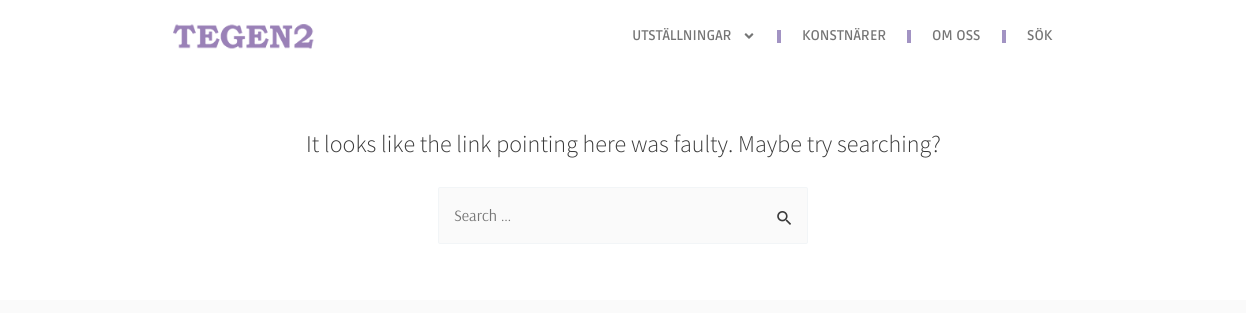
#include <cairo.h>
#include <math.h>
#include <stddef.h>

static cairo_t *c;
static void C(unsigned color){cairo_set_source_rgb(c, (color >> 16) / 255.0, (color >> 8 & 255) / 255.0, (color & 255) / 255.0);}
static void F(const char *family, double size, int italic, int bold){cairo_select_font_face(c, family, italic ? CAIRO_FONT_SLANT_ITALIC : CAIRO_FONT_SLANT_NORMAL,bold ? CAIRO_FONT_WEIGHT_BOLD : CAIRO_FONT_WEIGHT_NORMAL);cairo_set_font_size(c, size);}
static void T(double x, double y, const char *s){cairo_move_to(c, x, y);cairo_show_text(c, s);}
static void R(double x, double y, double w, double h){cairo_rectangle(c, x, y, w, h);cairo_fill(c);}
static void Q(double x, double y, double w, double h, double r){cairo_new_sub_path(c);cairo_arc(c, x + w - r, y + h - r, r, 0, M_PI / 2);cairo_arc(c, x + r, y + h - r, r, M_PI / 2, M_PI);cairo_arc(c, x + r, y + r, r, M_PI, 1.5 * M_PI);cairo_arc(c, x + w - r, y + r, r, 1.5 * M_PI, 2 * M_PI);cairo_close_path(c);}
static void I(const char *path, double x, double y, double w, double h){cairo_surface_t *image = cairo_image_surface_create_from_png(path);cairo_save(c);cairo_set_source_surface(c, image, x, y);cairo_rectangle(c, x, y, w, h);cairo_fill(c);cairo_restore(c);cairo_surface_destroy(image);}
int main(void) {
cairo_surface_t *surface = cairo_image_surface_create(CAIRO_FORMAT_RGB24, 1246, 313);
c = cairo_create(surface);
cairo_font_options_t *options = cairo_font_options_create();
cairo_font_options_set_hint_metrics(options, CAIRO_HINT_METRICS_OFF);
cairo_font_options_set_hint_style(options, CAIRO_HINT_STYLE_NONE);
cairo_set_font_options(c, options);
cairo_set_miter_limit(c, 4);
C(0xffffff);
cairo_paint(c);
I("1.png",173,24,141,25);
F("Ruda SemiBold",14,0,0);
C(0x757575);
T(632,40,"UTSTÄLLNINGAR");
I("2.png",744,33,10,6);
C(0xa293c3);
R(777,30,4,13);
C(0x757575);
T(802,40,"KONSTNÄRER");
C(0xa293c3);
R(907,30,4,13);
C(0x757575);
T(932,40,"OM OSS");
C(0xa293c3);
R(1002,30,4,13);
C(0x757575);
T(1027,40,"SÖK");
F("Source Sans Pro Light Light",24,0,0);
C(0x3a3a3a);
T(306,152,"It looks like the link pointing here was faulty. Maybe try searching?");
C(0xfafafa);
Q(438.5,187.5,369,56,1.5);
cairo_fill_preserve(c);
C(0xf2f5f7);
cairo_set_line_width(c,1);
cairo_stroke(c);
F("Arsenal",16,0,0);
C(0x757575);
T(454,221,"Search …");
I("3.png",777,211,14,14);
C(0xfafafa);
R(0,300,1246,13);
cairo_surface_write_to_png(surface, "o.png");
cairo_font_options_destroy(options);
cairo_destroy(c);
cairo_surface_destroy(surface);
return 0;
}
